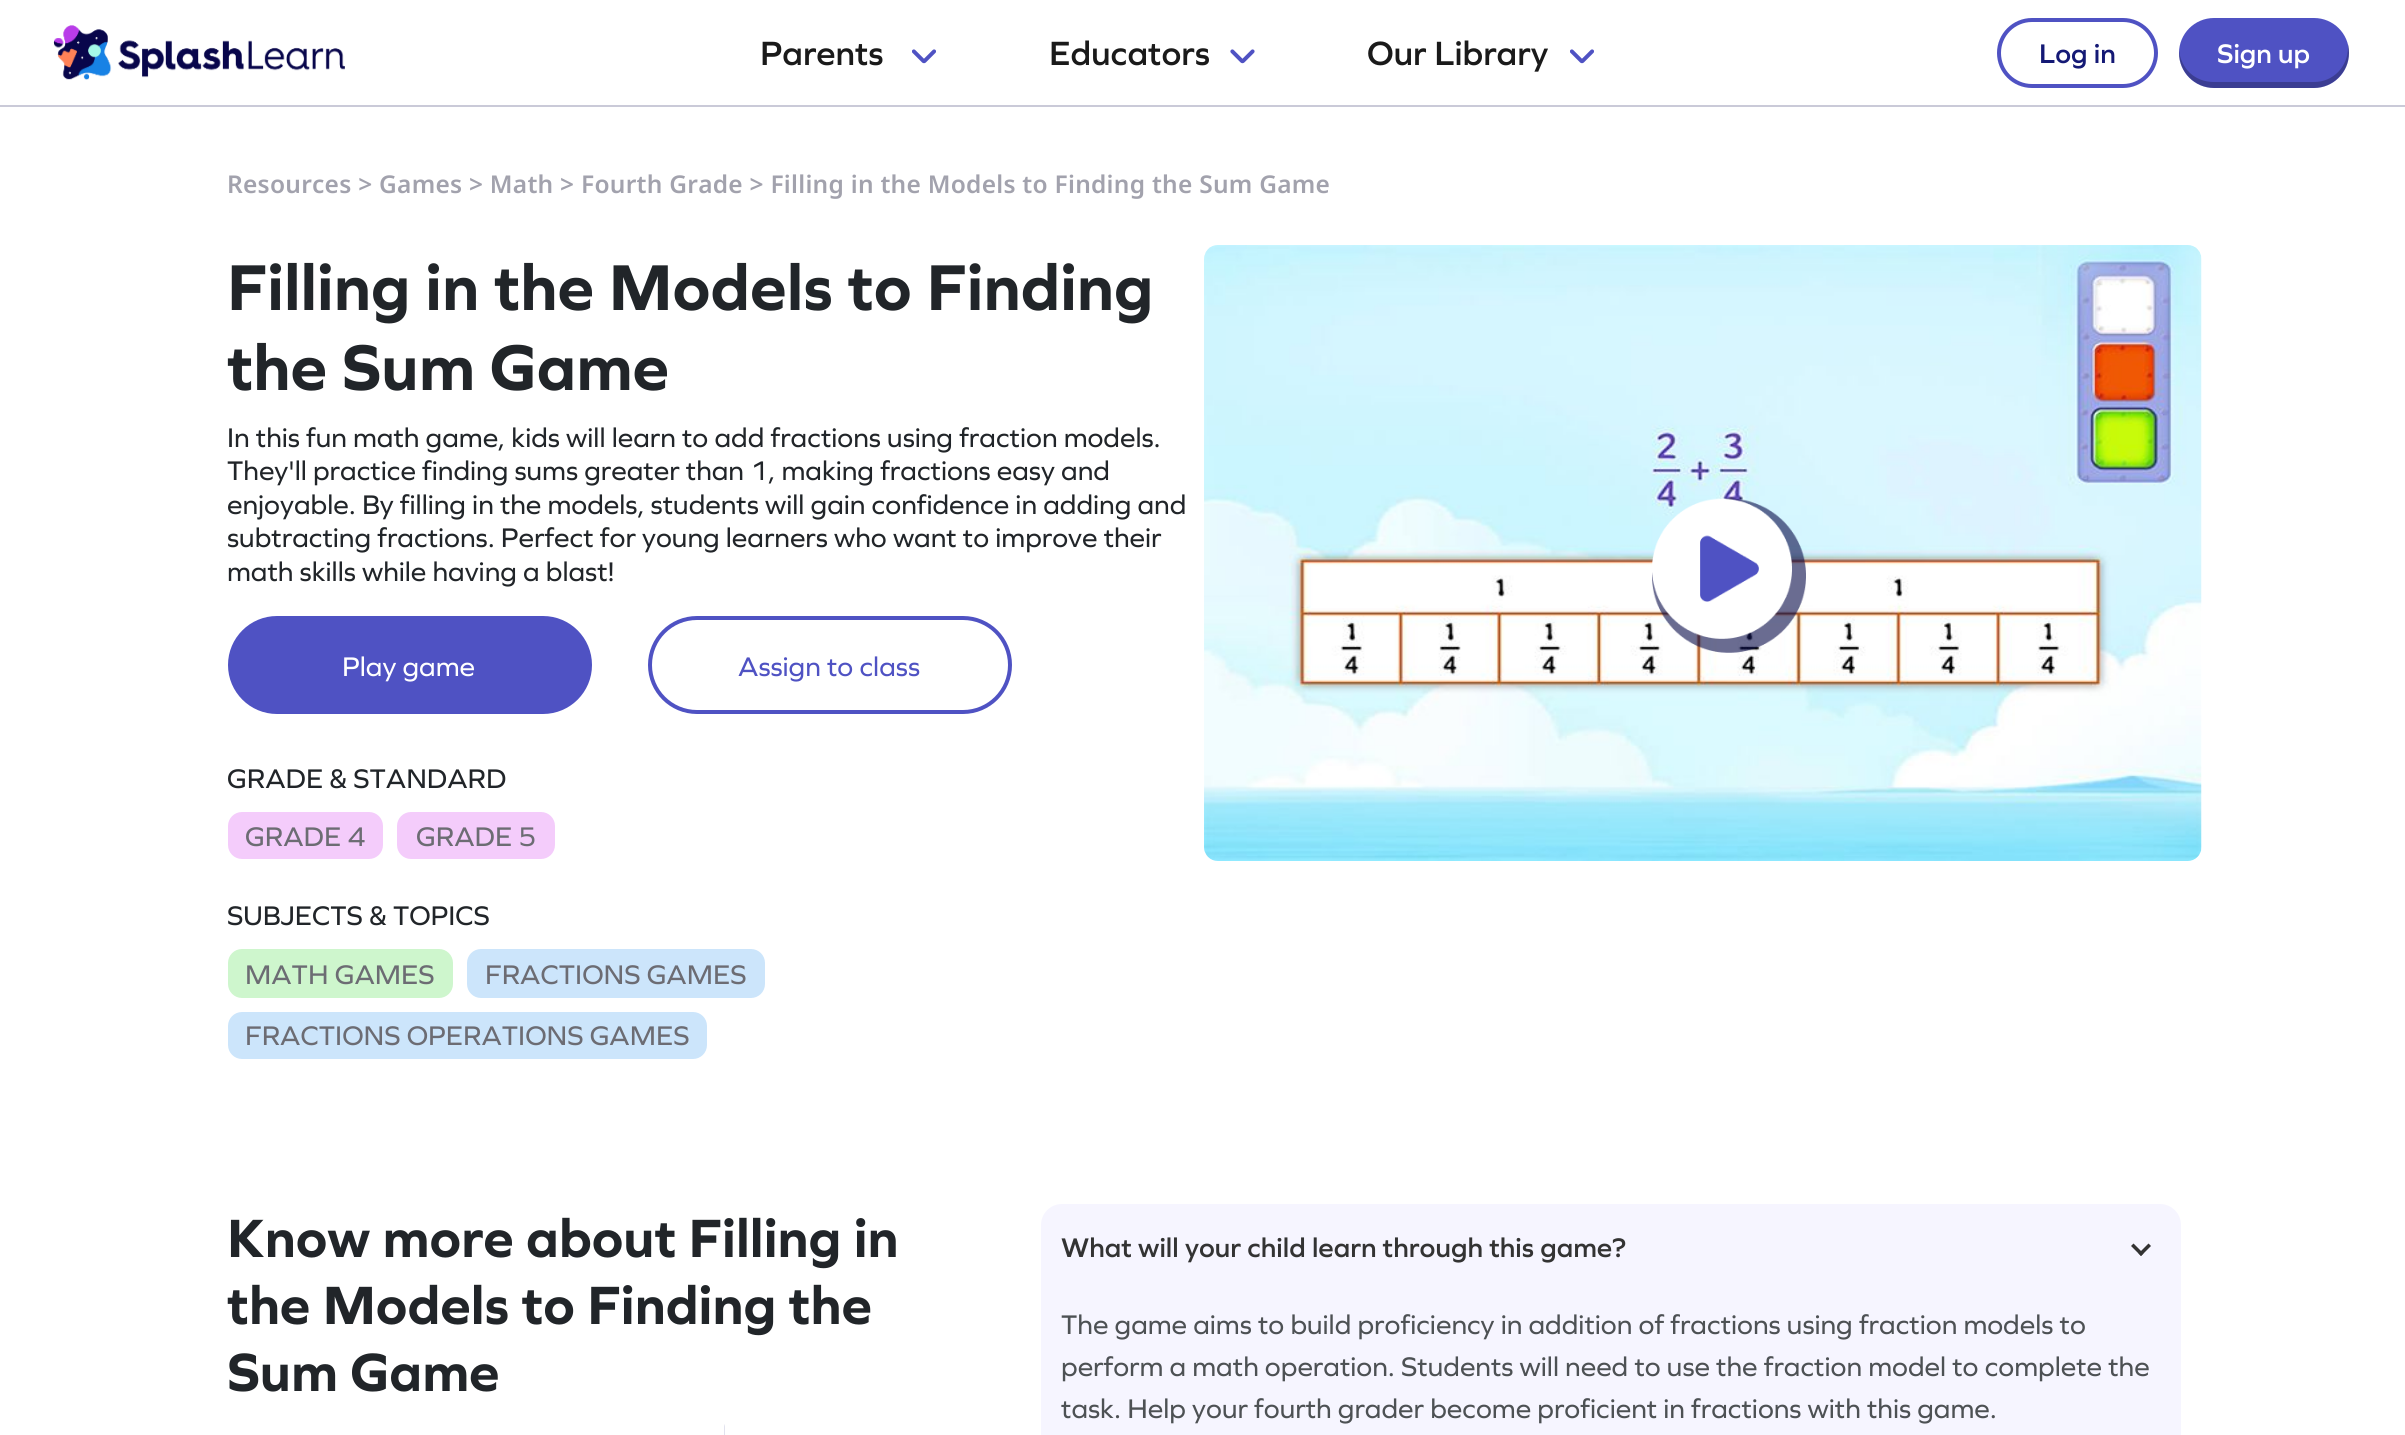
#include <cairo.h>
#include <math.h>
#include <stddef.h>

static cairo_t *c;
static void C(unsigned color){cairo_set_source_rgb(c, (color >> 16) / 255.0, (color >> 8 & 255) / 255.0, (color & 255) / 255.0);}
static void F(const char *family, double size, int italic, int bold){cairo_select_font_face(c, family, italic ? CAIRO_FONT_SLANT_ITALIC : CAIRO_FONT_SLANT_NORMAL,bold ? CAIRO_FONT_WEIGHT_BOLD : CAIRO_FONT_WEIGHT_NORMAL);cairo_set_font_size(c, size);}
static void T(double x, double y, const char *s){cairo_move_to(c, x, y);cairo_show_text(c, s);}
static void L(double x, double y, const char *s, double letter, double word){cairo_move_to(c, x, y);while (*s) {char ch[5] = {0};int n = 0;do ch[n++] = *s++; while ((*s & 0xC0) == 0x80);cairo_show_text(c, ch);cairo_rel_move_to(c, letter + word * (*ch == ' '), 0);}}
static void R(double x, double y, double w, double h){cairo_rectangle(c, x, y, w, h);cairo_fill(c);}
static void Q(double x, double y, double w, double h, double r){cairo_new_sub_path(c);cairo_arc(c, x + w - r, y + h - r, r, 0, M_PI / 2);cairo_arc(c, x + r, y + h - r, r, M_PI / 2, M_PI);cairo_arc(c, x + r, y + r, r, M_PI, 1.5 * M_PI);cairo_arc(c, x + w - r, y + r, r, 1.5 * M_PI, 2 * M_PI);cairo_close_path(c);}
static void I(const char *path, double x, double y, double w, double h){cairo_surface_t *image = cairo_image_surface_create_from_png(path);cairo_save(c);cairo_set_source_surface(c, image, x, y);cairo_rectangle(c, x, y, w, h);cairo_fill(c);cairo_restore(c);cairo_surface_destroy(image);}
int main(void) {
cairo_surface_t *surface = cairo_image_surface_create(CAIRO_FORMAT_RGB24, 2405, 1435);
c = cairo_create(surface);
cairo_font_options_t *options = cairo_font_options_create();
cairo_font_options_set_hint_metrics(options, CAIRO_HINT_METRICS_OFF);
cairo_font_options_set_hint_style(options, CAIRO_HINT_STYLE_NONE);
cairo_set_font_options(c, options);
cairo_set_miter_limit(c, 4);
C(0xffffff);
cairo_paint(c);
C(0xcacad8);
R(0,105,2405,2);
I("1.png",53,25,292,55);
F("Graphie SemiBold",35,0,0);
C(0x1a1a1a);
T(760,65,"Parents");
I("2.png",912,49,24,15);
T(1049,65,"Educators");
I("3.png",1230,49,25,15);
T(1367,65,"Our Library");
I("2.png",1570,49,24,15);
Q(1999,20,157,66,33);
C(0x4f52c3);
cairo_set_line_width(c,4);
cairo_stroke(c);
F("Graphie SemiBold",28,0,0);
C(0x141975);
T(2039,63,"Log in");
C(0x4f52c3);
Q(2179,18,170,70,35);
cairo_fill(c);
cairo_set_source_rgba(c,0,0,0,0.25);
cairo_new_path(c);
cairo_move_to(c,2179,50);
cairo_line_to(c,2179,53);
cairo_curve_to(c,2179,72,2195,88,2214,88);
cairo_line_to(c,2314,88);
cairo_curve_to(c,2333,88,2349,72,2349,53);
cairo_curve_to(c,2349,50,2349,47,2348,44);
cairo_line_to(c,2348,47);
cairo_curve_to(c,2348,67,2333,82,2314,82);
cairo_line_to(c,2214,82);
cairo_curve_to(c,2195,82,2181,69,2179,50);
cairo_close_path(c);
cairo_fill(c);
C(0xffffff);
T(2217,63,"Sign up");
F("Noto Sans SemiBold",24.5,0,0);
C(0xa2a2ad);
L(227,193,"Resources > Games > Math > Fourth Grade > Filling in the Models to Finding the Sum Game",.25,0);
F("Graphie",67.25,0,1);
C(0x212529);
T(227,310,"Filling in the Models to Finding");
T(227,390,"the Sum Game");
F("Graphie",28,0,0);
T(227,447,"In this fun math game, kids will learn to add fractions using fraction models.");
T(227,480,"They'll practice finding sums greater than 1, making fractions easy and");
T(227,514,"enjoyable. By filling in the models, students will gain confidence in adding and");
T(227,547,"subtracting fractions. Perfect for young learners who want to improve their");
T(227,581,"math skills while having a blast!");
C(0x4f52c3);
Q(228,616,364,98,49);
cairo_fill(c);
C(0xffffff);
T(342,676,"Play game");
Q(650,618,360,94,47);
C(0x4f52c3);
cairo_stroke(c);
T(738,676,"Assign to class");
C(0x212529);
T(227,788,"GRADE & STANDARD");
C(0xf4ccfb);
Q(228,812,155,47,14);
cairo_fill(c);
C(0x6c6c73);
T(245,846,"GRADE 4");
C(0xf4ccfb);
Q(397,812,158,47,14);
cairo_fill(c);
C(0x6c6c73);
T(416,846,"GRADE 5");
C(0x212529);
T(227,925,"SUBJECTS & TOPICS");
C(0xcef6cd);
Q(228,949,225,49,14);
cairo_fill(c);
C(0x6c6c73);
T(245,984,"MATH GAMES");
C(0xcce5fb);
Q(467,949,298,49,14);
cairo_fill(c);
C(0x6c6c73);
T(485,984,"FRACTIONS GAMES");
C(0xcce5fb);
Q(228,1012,479,47,14);
cairo_fill(c);
C(0x6c6c73);
T(245,1045,"FRACTIONS OPERATIONS GAMES");
I("4.png",1204,245,998,616);
I("5.png",1652,498,154,155);
F("Graphie",56,0,1);
C(0x212529);
T(227,1257,"Know more about Filling in");
T(227,1324,"the Models to Finding the");
T(227,1391,"Sum Game");
I("6.png",724,1424,1,11);
C(0xf6f5ff);
Q(1041,1204,1140,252,21);
cairo_fill(c);
F("Graphie SemiBold",28,0,0);
C(0x333333);
T(1061,1257,"What will your child learn through this game?");
cairo_new_path(c);
cairo_move_to(c,2148.5,1243.5);
cairo_line_to(c,2151,1246);
cairo_line_to(c,2141,1256);
cairo_line_to(c,2138.5,1253.5);
cairo_close_path(c);
cairo_fill(c);
cairo_new_path(c);
cairo_move_to(c,2133.5,1243.5);
cairo_line_to(c,2143.5,1253.5);
cairo_line_to(c,2141,1256);
cairo_line_to(c,2131,1246);
cairo_close_path(c);
cairo_fill(c);
F("Graphie",28,0,0);
C(0x4d5154);
T(1061,1334,"The game aims to build proficiency in addition of fractions using fraction models to");
T(1061,1376,"perform a math operation. Students will need to use the fraction model to complete the");
T(1061,1418,"task. Help your fourth grader become proficient in fractions with this game.");
cairo_surface_write_to_png(surface, "o.png");
cairo_font_options_destroy(options);
cairo_destroy(c);
cairo_surface_destroy(surface);
return 0;
}
